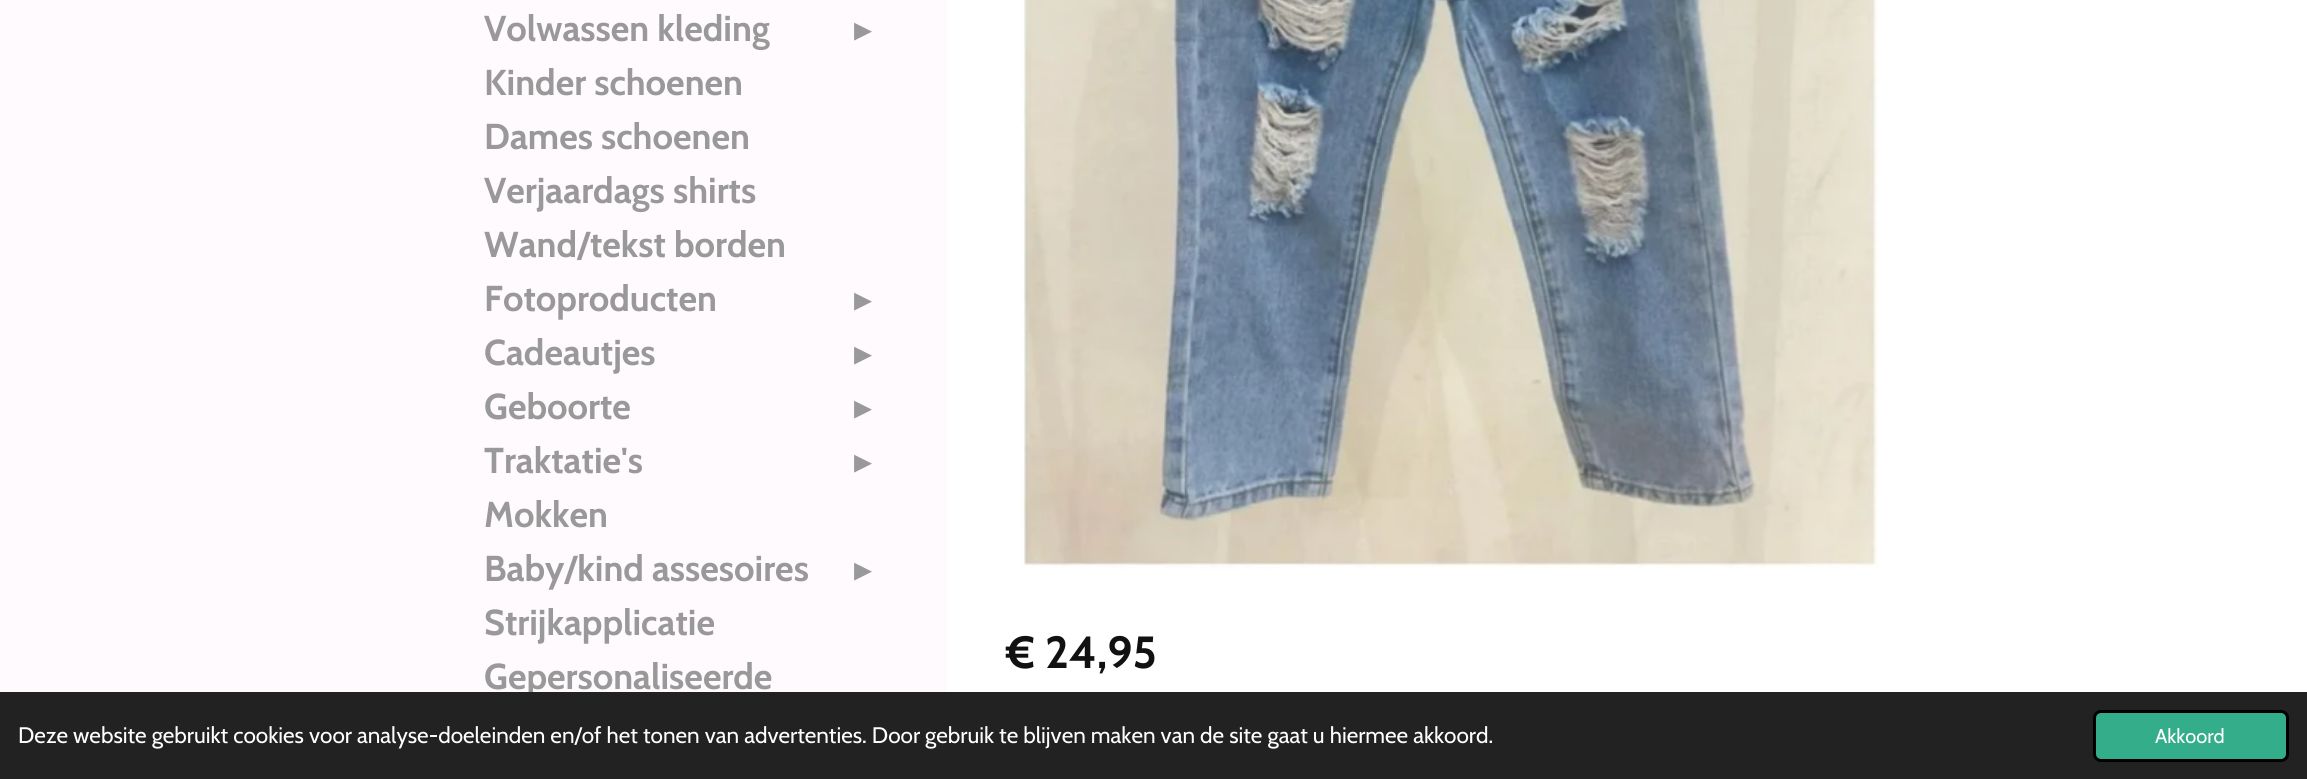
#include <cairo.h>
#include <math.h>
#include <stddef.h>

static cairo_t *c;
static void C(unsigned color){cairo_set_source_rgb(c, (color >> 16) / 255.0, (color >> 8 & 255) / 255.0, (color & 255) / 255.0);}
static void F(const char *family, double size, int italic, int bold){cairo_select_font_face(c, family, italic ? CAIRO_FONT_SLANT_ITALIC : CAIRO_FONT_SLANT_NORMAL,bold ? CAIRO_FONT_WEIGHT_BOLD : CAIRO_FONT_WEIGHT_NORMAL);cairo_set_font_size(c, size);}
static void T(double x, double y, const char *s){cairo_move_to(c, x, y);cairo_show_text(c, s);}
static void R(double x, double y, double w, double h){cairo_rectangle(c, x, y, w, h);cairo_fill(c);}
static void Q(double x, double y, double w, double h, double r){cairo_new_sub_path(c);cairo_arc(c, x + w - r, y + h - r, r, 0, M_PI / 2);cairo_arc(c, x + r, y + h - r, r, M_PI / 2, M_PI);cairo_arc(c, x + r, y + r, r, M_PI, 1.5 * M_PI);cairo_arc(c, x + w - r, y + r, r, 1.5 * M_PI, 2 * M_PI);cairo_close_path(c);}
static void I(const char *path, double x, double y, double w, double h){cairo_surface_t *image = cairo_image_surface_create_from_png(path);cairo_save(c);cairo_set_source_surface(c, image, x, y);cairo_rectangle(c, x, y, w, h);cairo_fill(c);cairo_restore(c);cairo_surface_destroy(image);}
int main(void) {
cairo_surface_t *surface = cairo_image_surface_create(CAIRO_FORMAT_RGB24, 2307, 779);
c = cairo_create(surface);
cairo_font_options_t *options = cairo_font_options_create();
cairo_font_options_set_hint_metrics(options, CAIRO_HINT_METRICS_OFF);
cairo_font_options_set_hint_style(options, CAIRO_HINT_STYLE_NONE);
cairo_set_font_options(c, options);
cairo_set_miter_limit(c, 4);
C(0xffffff);
cairo_paint(c);
C(0xfffafe);
R(0,0,947,692);
F("Cabin",36,0,1);
C(0x999999);
T(484,41,"Volwassen kleding");
F("DejaVu Sans",36,0,0);
T(854,41,"▸");
F("Cabin",36,0,1);
T(484,95,"Kinder schoenen");
T(484,149,"Dames schoenen");
T(484,203,"Verjaardags shirts");
T(484,257,"Wand/tekst borden");
T(484,311,"Fotoproducten");
F("DejaVu Sans",36,0,0);
T(854,311,"▸");
F("Cabin",36,0,1);
T(484,365,"Cadeautjes");
F("DejaVu Sans",36,0,0);
T(854,365,"▸");
F("Cabin",36,0,1);
T(484,419,"Geboorte");
F("DejaVu Sans",36,0,0);
T(854,419,"▸");
F("Cabin",36,0,1);
T(484,473,"Traktatie's");
F("DejaVu Sans",36,0,0);
T(854,473,"▸");
F("Cabin",36,0,1);
T(484,527,"Mokken");
T(484,581,"Baby/kind assesoires");
F("DejaVu Sans",36,0,0);
T(854,581,"▸");
F("Cabin",36,0,1);
T(484,635,"Strijkapplicatie");
T(484,689,"Gepersonaliseerde");
I("1.png",1021,0,858,569);
F("Cabin",45,0,1);
C(0x111111);
T(1006,668,"€ 24,95");
C(0x222222);
R(0,692,2307,87);
F("Cabin",22.5,0,0);
C(0xffffff);
T(18,743,"Deze website gebruikt cookies voor analyse-doeleinden en/of het tonen van advertenties. Door gebruik te blijven maken van de site gaat u hiermee akkoord.");
C(0x34ae8a);
Q(2094.5,711.5,193,49,6.5);
cairo_fill_preserve(c);
C(0x000000);
cairo_set_line_width(c,3);
cairo_stroke(c);
F("Cabin",20,0,0);
C(0xffffff);
T(2155,743,"Akkoord");
cairo_surface_write_to_png(surface, "o.png");
cairo_font_options_destroy(options);
cairo_destroy(c);
cairo_surface_destroy(surface);
return 0;
}
